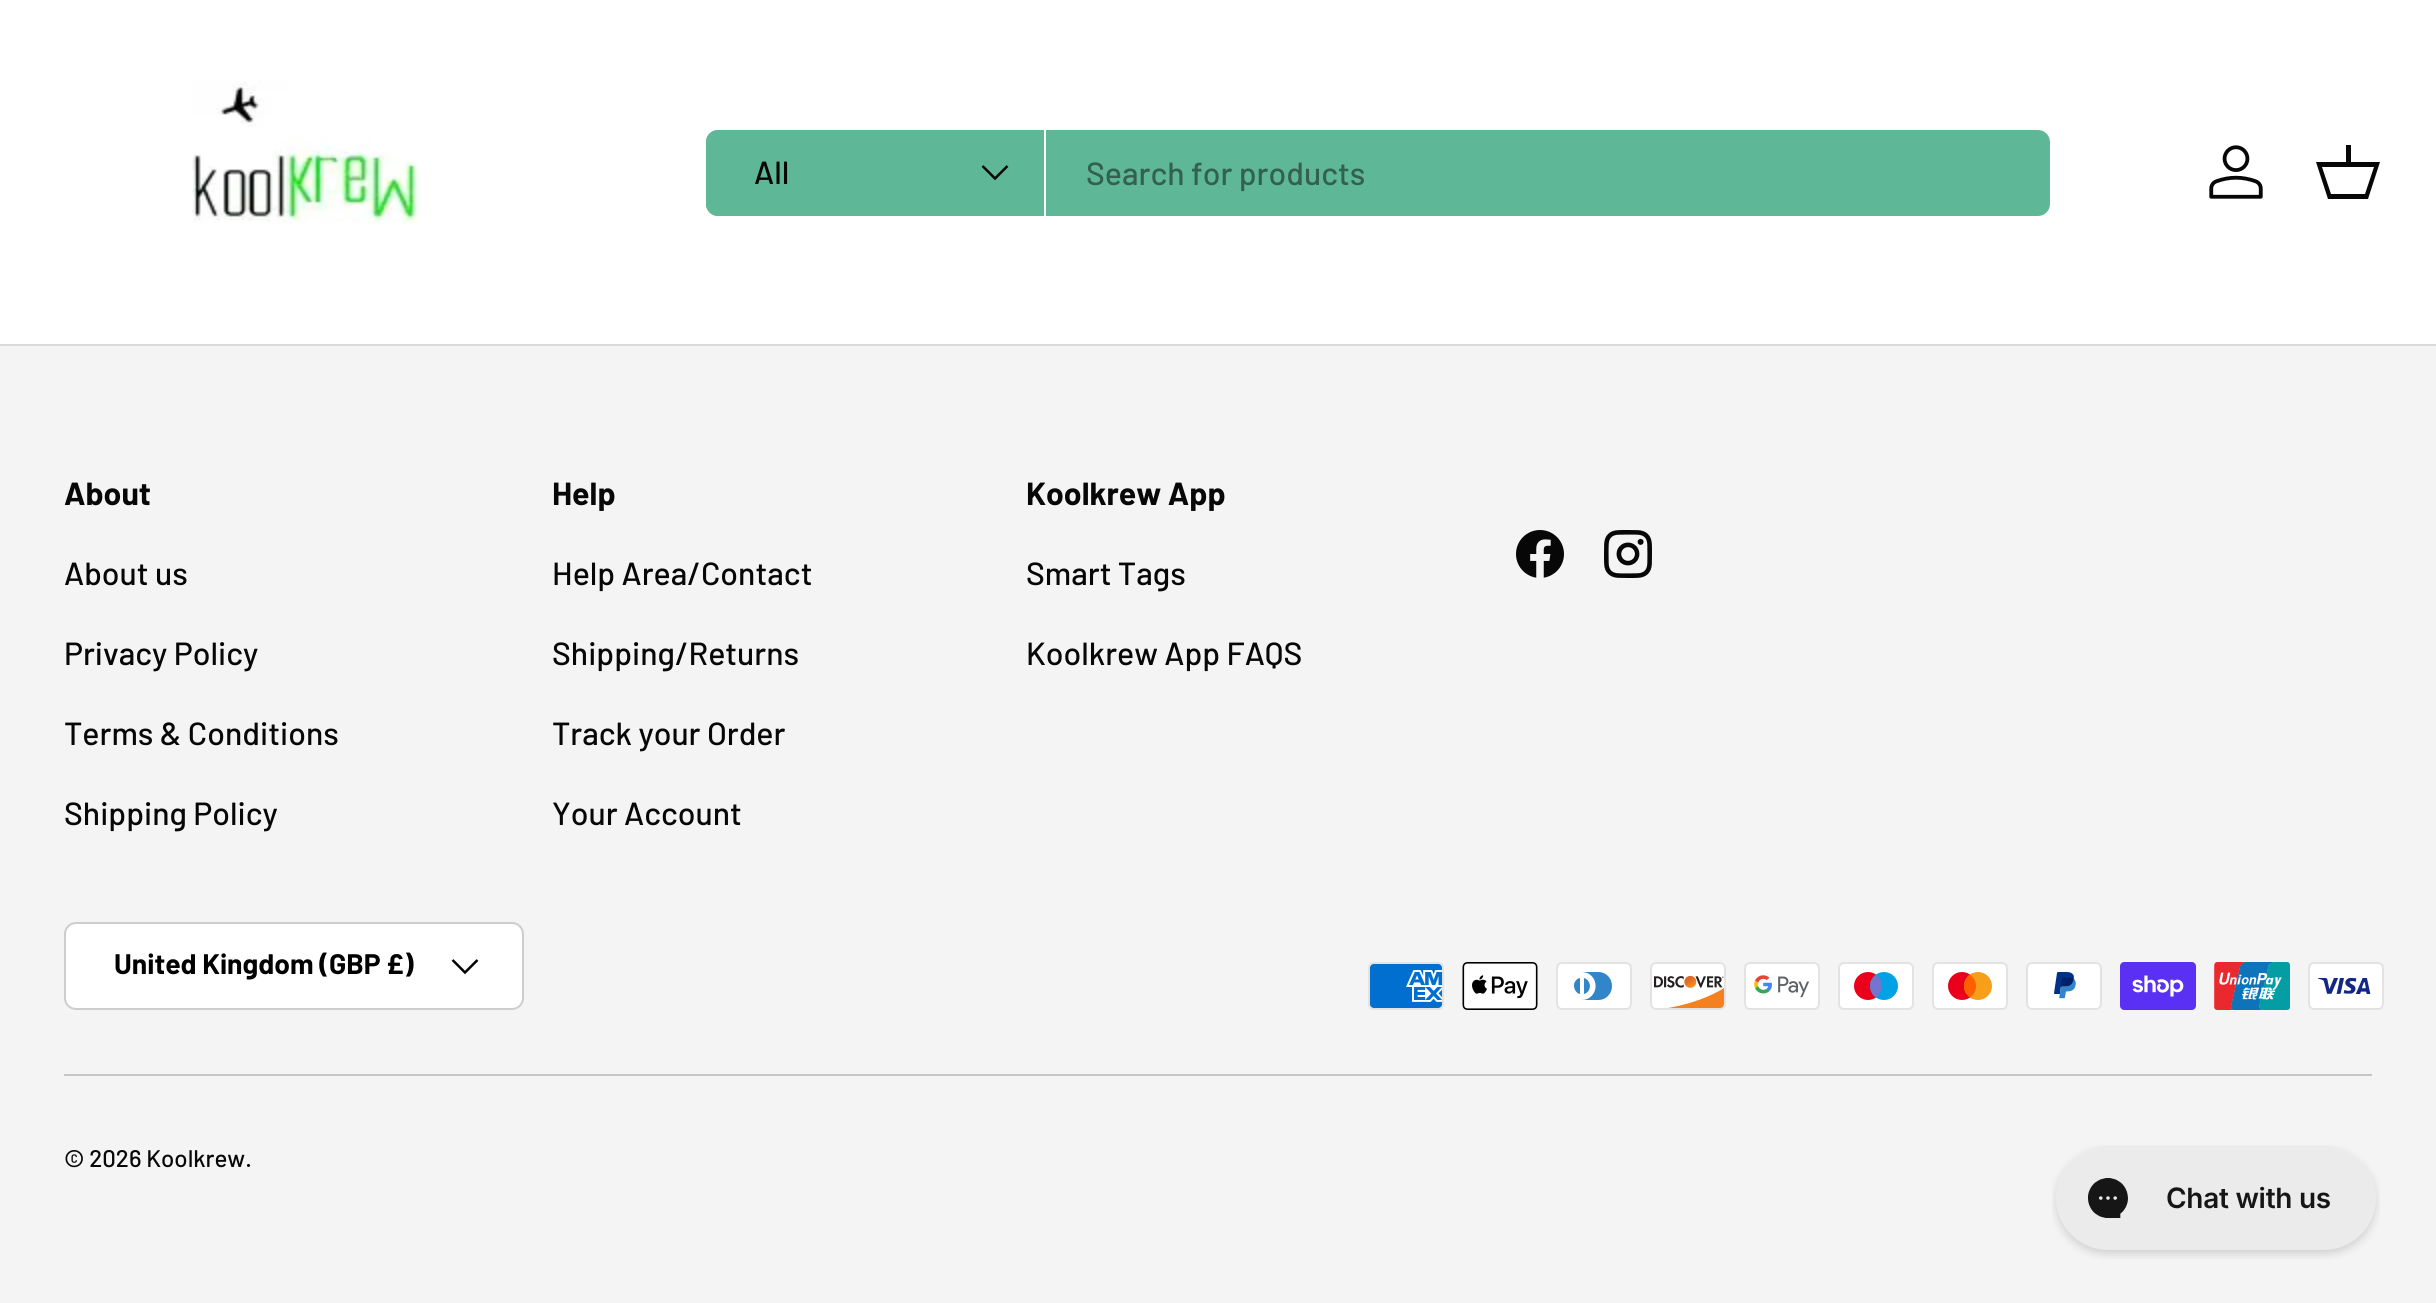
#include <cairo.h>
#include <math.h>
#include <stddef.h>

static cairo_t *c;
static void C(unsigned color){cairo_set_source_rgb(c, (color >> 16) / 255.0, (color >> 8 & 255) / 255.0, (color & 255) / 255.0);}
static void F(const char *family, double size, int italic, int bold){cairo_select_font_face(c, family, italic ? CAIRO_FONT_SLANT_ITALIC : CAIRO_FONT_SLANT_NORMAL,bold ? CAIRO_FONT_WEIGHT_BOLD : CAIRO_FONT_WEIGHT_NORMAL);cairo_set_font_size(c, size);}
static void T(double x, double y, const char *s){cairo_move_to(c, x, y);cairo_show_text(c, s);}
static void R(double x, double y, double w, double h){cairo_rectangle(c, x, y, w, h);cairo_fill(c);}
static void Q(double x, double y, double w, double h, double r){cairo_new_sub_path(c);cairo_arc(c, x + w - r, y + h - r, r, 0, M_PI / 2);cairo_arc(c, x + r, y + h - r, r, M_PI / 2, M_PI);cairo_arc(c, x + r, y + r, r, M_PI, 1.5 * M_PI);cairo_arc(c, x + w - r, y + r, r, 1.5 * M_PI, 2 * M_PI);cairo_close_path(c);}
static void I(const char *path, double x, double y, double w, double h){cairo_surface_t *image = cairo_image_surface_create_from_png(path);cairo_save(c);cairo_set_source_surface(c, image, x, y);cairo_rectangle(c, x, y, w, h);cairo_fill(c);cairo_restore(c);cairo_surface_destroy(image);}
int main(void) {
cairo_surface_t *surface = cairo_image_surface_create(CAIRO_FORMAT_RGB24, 2436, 1303);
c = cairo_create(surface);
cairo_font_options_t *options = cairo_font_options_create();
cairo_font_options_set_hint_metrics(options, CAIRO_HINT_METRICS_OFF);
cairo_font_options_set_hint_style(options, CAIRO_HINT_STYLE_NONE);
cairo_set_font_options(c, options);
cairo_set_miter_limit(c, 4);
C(0xf4f4f4);
cairo_paint(c);
C(0xffffff);
R(0,0,2436,344);
C(0xdadada);
R(0,344,2436,2);
I("1.png",192,80,227,144);
C(0x5eb898);
Q(706,130,1344,86,12);
cairo_fill(c);
cairo_new_path(c);
cairo_move_to(c,718,130);
cairo_line_to(c,1046,130);
cairo_line_to(c,1046,216);
cairo_line_to(c,718,216);
cairo_curve_to(c,711.5,216,706,210.5,706,204);
cairo_line_to(c,706,142);
cairo_curve_to(c,706,135.5,711.5,130,718,130);
cairo_close_path(c);
cairo_fill(c);
C(0xffffff);
R(1044,130,2,86);
F("Barlow Medium",32,0,0);
C(0x070707);
T(754,184,"All");
cairo_new_path(c);
cairo_move_to(c,1007.5,166);
cairo_line_to(c,995,178.5);
cairo_line_to(c,982.5,166);
cairo_set_line_width(c,2.5);
cairo_stroke(c);
C(0x336050);
T(1086,185,"Search for products");
I("2.png",2209,145,54,54);
C(0x070707);
cairo_new_path(c);
cairo_move_to(c,2346,162);
cairo_line_to(c,2346,145);
cairo_line_to(c,2351,145);
cairo_line_to(c,2351,162);
cairo_line_to(c,2380,162);
cairo_line_to(c,2368,199);
cairo_line_to(c,2328,199);
cairo_line_to(c,2316,162);
cairo_close_path(c);
cairo_move_to(c,2322,167);
cairo_line_to(c,2331,194);
cairo_line_to(c,2365,194);
cairo_line_to(c,2374,167);
cairo_close_path(c);
cairo_fill(c);
F("Barlow",32,0,1);
T(64,505,"About");
F("Barlow Medium",32,0,0);
T(64,585,"About us");
T(64,665,"Privacy Policy");
T(64,745,"Terms & Conditions");
T(64,825,"Shipping Policy");
F("Barlow",32,0,1);
T(552,505,"Help");
F("Barlow Medium",32,0,0);
T(552,585,"Help Area/Contact");
T(552,665,"Shipping/Returns");
T(552,745,"Track your Order");
T(552,825,"Your Account");
F("Barlow",32,0,1);
T(1026,505,"Koolkrew App");
F("Barlow Medium",32,0,0);
T(1026,585,"Smart Tags");
T(1026,665,"Koolkrew App FAQS");
I("3.png",1516,530,48,48);
I("4.png",1604,530,48,48);
C(0xffffff);
Q(64,922,460,88,12);
cairo_fill(c);
Q(65,923,458,86,11);
cairo_set_source_rgba(c,0.027,0.027,0.027,0.2);
cairo_set_line_width(c,2);
cairo_stroke(c);
F("Barlow",28.25,0,1);
C(0x000000);
T(114,974,"United Kingdom (GBP £)");
cairo_new_path(c);
cairo_move_to(c,477.5,960);
cairo_line_to(c,465,972.5);
cairo_line_to(c,452.5,960);
cairo_set_line_width(c,2.5);
cairo_stroke(c);
I("5.png",1368,962,76,48);
I("6.png",1462,962,76,48);
I("7.png",1556,962,76,48);
I("8.png",1650,962,76,48);
I("9.png",1744,962,76,48);
I("10.png",1838,962,76,48);
I("11.png",1932,962,76,48);
I("12.png",2026,962,76,48);
I("13.png",2120,962,76,48);
I("14.png",2214,962,76,48);
I("15.png",2308,962,76,48);
C(0xc5c5c5);
R(64,1074,2308,2);
F("Barlow Medium",24,0,0);
C(0x070707);
T(64,1167,"© 2026 Koolkrew.");
I("16.png",2052,1145,328,114);
cairo_surface_write_to_png(surface, "o.png");
cairo_font_options_destroy(options);
cairo_destroy(c);
cairo_surface_destroy(surface);
return 0;
}
